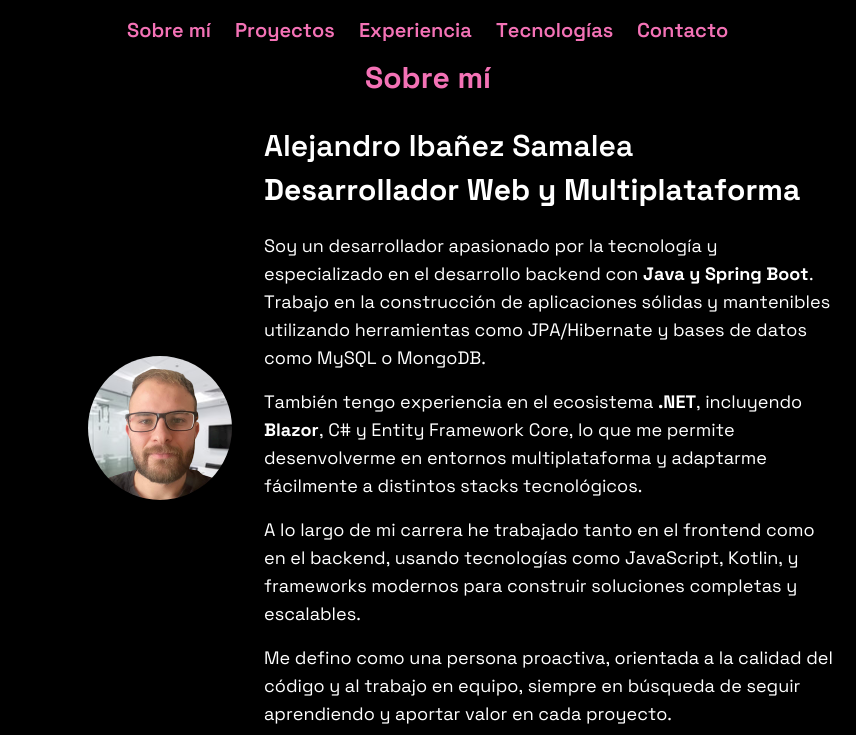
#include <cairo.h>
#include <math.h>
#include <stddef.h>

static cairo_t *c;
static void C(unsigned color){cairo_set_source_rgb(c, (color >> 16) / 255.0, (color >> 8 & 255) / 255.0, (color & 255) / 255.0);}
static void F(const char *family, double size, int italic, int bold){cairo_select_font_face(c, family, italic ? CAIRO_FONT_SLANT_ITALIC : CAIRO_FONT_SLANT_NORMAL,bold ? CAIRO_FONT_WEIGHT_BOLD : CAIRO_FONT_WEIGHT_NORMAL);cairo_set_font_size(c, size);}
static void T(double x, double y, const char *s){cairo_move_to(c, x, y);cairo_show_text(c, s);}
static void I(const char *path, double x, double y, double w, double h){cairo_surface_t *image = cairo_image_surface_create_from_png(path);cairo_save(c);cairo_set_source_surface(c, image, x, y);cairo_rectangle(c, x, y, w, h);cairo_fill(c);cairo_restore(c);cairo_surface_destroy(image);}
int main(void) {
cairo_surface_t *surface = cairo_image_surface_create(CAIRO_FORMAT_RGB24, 856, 735);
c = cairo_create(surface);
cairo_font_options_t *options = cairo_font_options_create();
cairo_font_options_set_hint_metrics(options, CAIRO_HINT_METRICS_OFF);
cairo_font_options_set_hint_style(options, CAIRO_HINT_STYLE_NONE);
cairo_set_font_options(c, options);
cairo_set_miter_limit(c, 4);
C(0x000000);
cairo_paint(c);
F("Space Grotesk SemiBold",20,0,0);
C(0xf472b6);
T(127,37,"Sobre mí");
T(235,37,"Proyectos");
T(359,37,"Experiencia");
T(496,37,"Tecnologías");
T(637,37,"Contacto");
F("Space Grotesk",30,0,1);
T(365,88,"Sobre mí");
I("1.png",88,356,144,144);
F("Space Grotesk SemiBold",30,0,0);
C(0xffffff);
T(264,156,"Alejandro Ibañez Samalea");
F("Space Grotesk",30,0,1);
T(264,200,"Desarrollador Web y Multiplataforma");
F("Space Grotesk",18,0,0);
T(264,252,"Soy un desarrollador apasionado por la tecnología y");
T(264,280,"especializado en el desarrollo backend con");
F("Space Grotesk",18,0,1);
T(643,280,"Java y Spring Boot");
F("Space Grotesk",18,0,0);
T(809,280,".");
T(264,308,"Trabajo en la construcción de aplicaciones sólidas y mantenibles");
T(264,336,"utilizando herramientas como JPA/Hibernate y bases de datos");
T(264,364,"como MySQL o MongoDB.");
T(264,408,"También tengo experiencia en el ecosistema");
F("Space Grotesk",18,0,1);
T(658,408,".NET");
F("Space Grotesk",18,0,0);
T(696,408,", incluyendo");
F("Space Grotesk",18,0,1);
T(264,436,"Blazor");
F("Space Grotesk",18,0,0);
T(319,436,", C# y Entity Framework Core, lo que me permite");
T(264,464,"desenvolverme en entornos multiplataforma y adaptarme");
T(264,492,"fácilmente a distintos stacks tecnológicos.");
T(264,536,"A lo largo de mi carrera he trabajado tanto en el frontend como");
T(264,564,"en el backend, usando tecnologías como JavaScript, Kotlin, y");
T(264,592,"frameworks modernos para construir soluciones completas y");
T(264,620,"escalables.");
T(264,664,"Me defino como una persona proactiva, orientada a la calidad del");
T(264,692,"código y al trabajo en equipo, siempre en búsqueda de seguir");
T(264,720,"aprendiendo y aportar valor en cada proyecto.");
cairo_surface_write_to_png(surface, "o.png");
cairo_font_options_destroy(options);
cairo_destroy(c);
cairo_surface_destroy(surface);
return 0;
}
